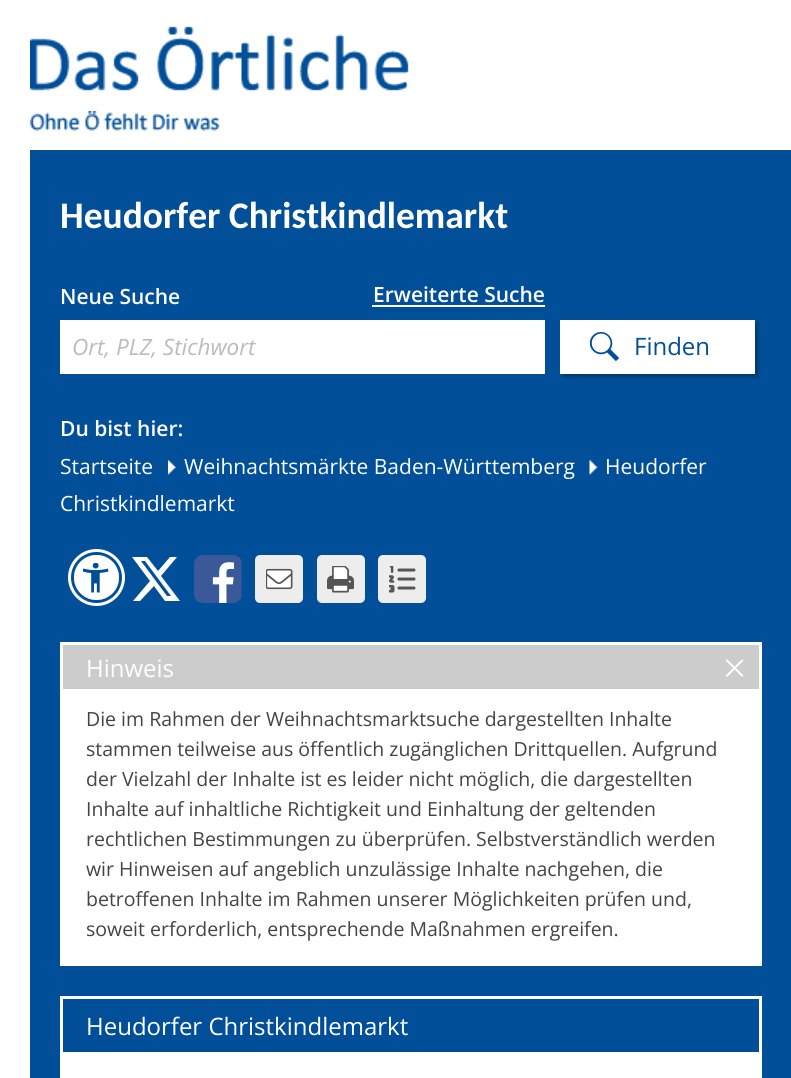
#include <cairo.h>
#include <math.h>
#include <stddef.h>

static cairo_t *c;
static void C(unsigned color){cairo_set_source_rgb(c, (color >> 16) / 255.0, (color >> 8 & 255) / 255.0, (color & 255) / 255.0);}
static void F(const char *family, double size, int italic, int bold){cairo_select_font_face(c, family, italic ? CAIRO_FONT_SLANT_ITALIC : CAIRO_FONT_SLANT_NORMAL,bold ? CAIRO_FONT_WEIGHT_BOLD : CAIRO_FONT_WEIGHT_NORMAL);cairo_set_font_size(c, size);}
static void T(double x, double y, const char *s){cairo_move_to(c, x, y);cairo_show_text(c, s);}
static void R(double x, double y, double w, double h){cairo_rectangle(c, x, y, w, h);cairo_fill(c);}
static void Q(double x, double y, double w, double h, double r){cairo_new_sub_path(c);cairo_arc(c, x + w - r, y + h - r, r, 0, M_PI / 2);cairo_arc(c, x + r, y + h - r, r, M_PI / 2, M_PI);cairo_arc(c, x + r, y + r, r, M_PI, 1.5 * M_PI);cairo_arc(c, x + w - r, y + r, r, 1.5 * M_PI, 2 * M_PI);cairo_close_path(c);}
static void S(double x, double y, double w, double h, double r, double blur, double alpha){cairo_push_group_with_content(c, CAIRO_CONTENT_ALPHA);cairo_set_operator(c, CAIRO_OPERATOR_SOURCE);for (int i = 15; i >= -15 && fmin(w, h) + blur * i / 3 > 0; i -= 2) {double e = blur * i / 6;cairo_set_source_rgba(c, 0, 0, 0, alpha * erfc((i - 1) / 8.5) / 2);Q(x - e, y - e, w + 2 * e, h + 2 * e, fmax(0, fmin(r + e + blur * .6, fmin(w, h) / 2 + e)));cairo_fill(c);}cairo_pattern_t *soft = cairo_pop_group(c);cairo_mask(c, soft);cairo_pattern_destroy(soft);}
static void I(const char *path, double x, double y, double w, double h){cairo_surface_t *image = cairo_image_surface_create_from_png(path);cairo_save(c);cairo_set_source_surface(c, image, x, y);cairo_rectangle(c, x, y, w, h);cairo_fill(c);cairo_restore(c);cairo_surface_destroy(image);}
int main(void) {
cairo_surface_t *surface = cairo_image_surface_create(CAIRO_FORMAT_RGB24, 791, 1078);
c = cairo_create(surface);
cairo_font_options_t *options = cairo_font_options_create();
cairo_font_options_set_hint_metrics(options, CAIRO_HINT_METRICS_OFF);
cairo_font_options_set_hint_style(options, CAIRO_HINT_STYLE_NONE);
cairo_set_font_options(c, options);
cairo_set_miter_limit(c, 4);
C(0xffffff);
cairo_paint(c);
I("1.png",30,26,379,65);
I("2.png",30,111,190,20);
C(0x024f99);
R(30,150,761,928);
F("Carlito",37.5,0,1);
C(0xffffff);
T(60,228,"Heudorfer Christkindlemarkt");
F("Open Sans SemiBold",21,0,0);
T(60,304,"Neue Suche");
T(373,302,"Erweiterte Suche");
R(372,305,173,2);
R(60,320,485,54);
F("Open Sans",22.5,1,0);
C(0xbbbbbb);
T(72,355,"Ort, PLZ, Stichwort");
C(0x000000);
S(563,323,195,54,0,2,.29);
C(0xffffff);
R(560,320,195,54);
I("3.png",590,332,30,30);
F("Open Sans",24,0,0);
C(0x024f99);
T(634,355,"Finden");
F("Open Sans SemiBold",21,0,0);
C(0xffffff);
T(60,436,"Du bist hier:");
I("4.png",589,460,9,15);
F("Open Sans",21,0,0);
T(605,474,"Heudorfer");
T(60,511,"Christkindlemarkt");
T(60,474,"Startseite");
I("5.png",168,460,8,15);
T(184,474,"Weihnachtsmärkte Baden-Württemberg");
cairo_new_path(c);
cairo_arc(c,96.5,577.5,25.5,0,2 * M_PI);
cairo_set_line_width(c,6);
cairo_stroke(c);
cairo_arc(c,96.5,577.5,24,0,2 * M_PI);
C(0x024f99);
cairo_set_line_width(c,3);
cairo_stroke(c);
C(0xffffff);
cairo_arc(c,96.5,577.5,22.5,0,2 * M_PI);
cairo_fill(c);
I("6.png",83,563,26,30);
cairo_new_path(c);
cairo_move_to(c,170,557);
cairo_line_to(c,177,557);
cairo_line_to(c,161,576);
cairo_line_to(c,180,601);
cairo_line_to(c,165,601);
cairo_line_to(c,154,586);
cairo_line_to(c,140,601);
cairo_line_to(c,133,601);
cairo_line_to(c,150,581);
cairo_line_to(c,132,557);
cairo_line_to(c,147,557);
cairo_line_to(c,158,571);
cairo_close_path(c);
cairo_move_to(c,167,596);
cairo_line_to(c,171,596);
cairo_line_to(c,145,561);
cairo_line_to(c,141,561);
cairo_close_path(c);
cairo_fill(c);
I("7.png",194,555,48,48);
C(0xededed);
Q(255,555,48,48,5);
cairo_fill(c);
I("8.png",266,568,27,22);
Q(317,555,48,48,5);
cairo_fill(c);
I("9.png",327,566,27,27);
Q(378,555,48,48,5);
cairo_fill(c);
I("10.png",389,566,27,27);
cairo_rectangle(c,61.5,643.5,699,321);
C(0xffffff);
cairo_stroke(c);
C(0xcccccc);
R(63,645,696,44);
F("Open Sans",24,0,0);
C(0xffffff);
T(86,677,"Hinweis");
F("FreeSans",24,0,0);
T(725,677,"⨉");
R(63,689,696,274);
F("Open Sans",19.5,0,0);
C(0x444444);
T(86,726,"Die im Rahmen der Weihnachtsmarktsuche dargestellten Inhalte");
T(86,756,"stammen teilweise aus öffentlich zugänglichen Drittquellen. Aufgrund");
T(86,786,"der Vielzahl der Inhalte ist es leider nicht möglich, die dargestellten");
T(86,816,"Inhalte auf inhaltliche Richtigkeit und Einhaltung der geltenden");
T(86,846,"rechtlichen Bestimmungen zu überprüfen. Selbstverständlich werden");
T(86,876,"wir Hinweisen auf angeblich unzulässige Inhalte nachgehen, die");
T(86,906,"betroffenen Inhalte im Rahmen unserer Möglichkeiten prüfen und,");
T(86,936,"soweit erforderlich, entsprechende Maßnahmen ergreifen.");
cairo_rectangle(c,61.5,997.5,699,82);
C(0xffffff);
cairo_stroke(c);
F("Open Sans",24,0,0);
T(86,1035,"Heudorfer Christkindlemarkt");
R(63,1052,696,26);
cairo_surface_write_to_png(surface, "o.png");
cairo_font_options_destroy(options);
cairo_destroy(c);
cairo_surface_destroy(surface);
return 0;
}
